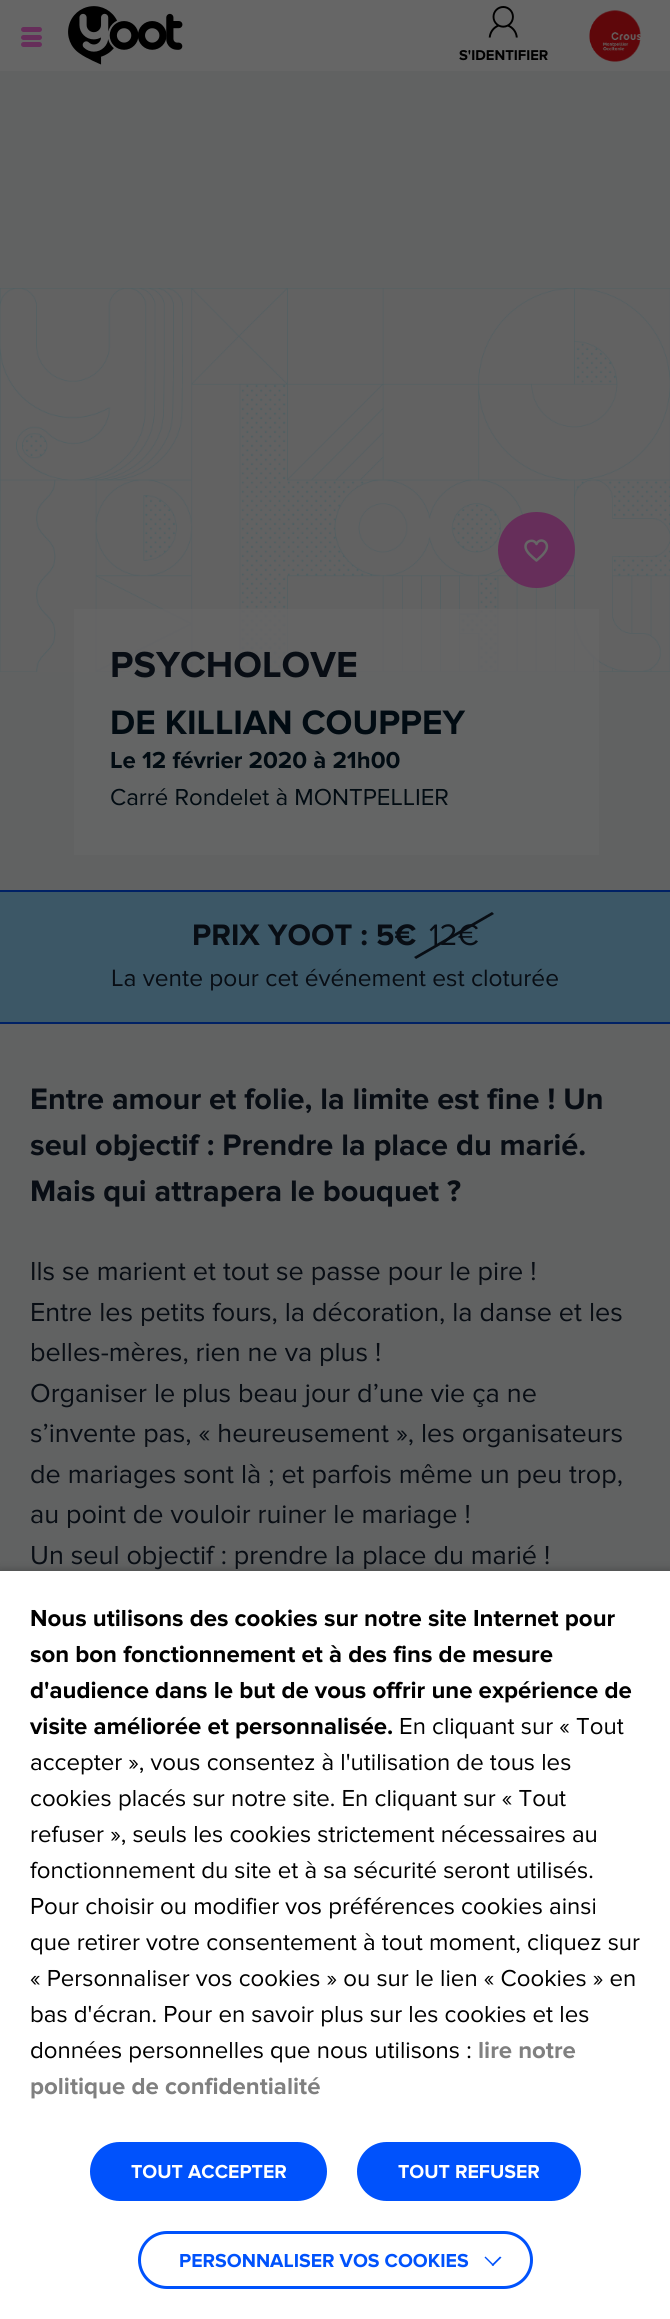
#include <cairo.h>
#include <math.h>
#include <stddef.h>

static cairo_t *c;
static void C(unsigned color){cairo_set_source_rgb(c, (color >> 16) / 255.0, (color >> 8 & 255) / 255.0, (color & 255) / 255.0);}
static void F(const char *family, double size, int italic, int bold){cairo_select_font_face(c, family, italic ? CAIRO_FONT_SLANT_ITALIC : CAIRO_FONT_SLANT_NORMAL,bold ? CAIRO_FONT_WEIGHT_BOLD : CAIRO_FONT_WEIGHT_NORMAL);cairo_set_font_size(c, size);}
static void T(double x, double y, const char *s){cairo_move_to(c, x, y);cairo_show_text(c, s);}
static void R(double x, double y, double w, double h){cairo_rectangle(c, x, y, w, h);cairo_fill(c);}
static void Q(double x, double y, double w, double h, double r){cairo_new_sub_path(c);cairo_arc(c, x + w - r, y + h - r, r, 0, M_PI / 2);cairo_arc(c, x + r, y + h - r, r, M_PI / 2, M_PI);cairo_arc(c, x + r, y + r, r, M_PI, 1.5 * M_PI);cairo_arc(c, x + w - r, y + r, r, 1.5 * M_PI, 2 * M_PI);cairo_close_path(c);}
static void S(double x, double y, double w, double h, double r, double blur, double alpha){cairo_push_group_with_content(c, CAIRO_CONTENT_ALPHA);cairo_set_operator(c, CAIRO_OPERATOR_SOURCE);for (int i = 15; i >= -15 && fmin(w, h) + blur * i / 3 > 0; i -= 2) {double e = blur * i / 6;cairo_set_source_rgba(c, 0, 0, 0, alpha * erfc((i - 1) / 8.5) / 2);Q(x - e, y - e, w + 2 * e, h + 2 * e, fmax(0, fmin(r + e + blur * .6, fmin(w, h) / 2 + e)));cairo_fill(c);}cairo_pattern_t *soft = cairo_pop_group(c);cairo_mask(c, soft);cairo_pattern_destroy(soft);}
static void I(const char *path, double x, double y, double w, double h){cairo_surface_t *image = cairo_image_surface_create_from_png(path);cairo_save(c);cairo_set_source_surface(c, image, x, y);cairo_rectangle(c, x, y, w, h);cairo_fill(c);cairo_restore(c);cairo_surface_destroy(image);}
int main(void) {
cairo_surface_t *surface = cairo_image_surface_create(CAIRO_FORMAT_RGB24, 670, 2319);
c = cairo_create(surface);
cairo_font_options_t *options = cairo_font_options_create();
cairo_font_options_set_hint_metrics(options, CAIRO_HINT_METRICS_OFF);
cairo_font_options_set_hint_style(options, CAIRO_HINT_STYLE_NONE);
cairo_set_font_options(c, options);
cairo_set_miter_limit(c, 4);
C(0x616262);
cairo_paint(c);
C(0x666666);
R(0,0,670,71);
C(0x662e5a);
Q(21,27,21,5,2.5);
cairo_fill(c);
Q(21,35,21,5,2.5);
cairo_fill(c);
Q(21,42,21,5,2.5);
cairo_fill(c);
I("1.png",68,6,115,59);
I("2.png",488,6,30,32);
F("Proxima Nova",14.75,0,1);
C(0x000000);
T(459,60,"S'IDENTIFIER");
I("3.png",589,10,52,52);
I("4.png",0,288,670,384);
cairo_set_source_rgba(c,0.4,0.4,0.4,0.8);
R(74,609,525,246);
C(0x662e5a);
Q(498,512,77,76,38);
cairo_fill(c);
cairo_new_path(c);
cairo_move_to(c,525.5,546.5);
cairo_curve_to(c,525.5,540.5,534,538.5,536.5,544);
cairo_curve_to(c,540,536,552,543,544.5,552.5);
cairo_curve_to(c,542.5,555.5,539,558,536.5,560.5);
cairo_curve_to(c,532.5,557,525.5,552,525.5,546.5);
cairo_close_path(c);
C(0x666666);
cairo_set_line_width(c,2.5);
cairo_set_line_join(c,CAIRO_LINE_JOIN_ROUND);
cairo_stroke(c);
F("Proxima Nova",37.5,0,1);
C(0x080d14);
T(110,677,"PSYCHOLOVE");
F("Proxima Nova",35.1,0,1);
C(0x010b12);
T(110,734,"DE KILLIAN COUPPEY");
F("Proxima Nova",24,0,1);
T(110,768,"Le 12 février 2020 à 21h00");
F("Proxima Nova",24,0,0);
T(110,805,"Carré Rondelet à MONTPELLIER");
C(0x3c5766);
R(0,892,670,130);
C(0x002165);
R(0,890,670,2);
R(0,1022,670,2);
F("Proxima Nova",30.7,0,1);
C(0x080d14);
T(192,945,"PRIX YOOT : 5€");
cairo_new_path(c);
cairo_move_to(c,414,957);
cairo_line_to(c,492,912);
cairo_line_to(c,494,914);
cairo_line_to(c,416,959);
cairo_close_path(c);
cairo_fill(c);
F("Proxima Nova",30.7,0,0);
T(429,945,"12€");
F("Proxima Nova",24.5,0,0);
T(111,986,"La vente pour cet événement est cloturée");
F("Proxima Nova",30.7,0,1);
T(30,1109,"Entre amour et folie, la limite est fine ! Un");
T(30,1155,"seul objectif : Prendre la place du marié.");
T(30,1201,"Mais qui attrapera le bouquet ?");
F("Proxima Nova",27,0,0);
T(30,1280,"Ils se marient et tout se passe pour le pire !");
T(30,1321,"Entre les petits fours, la décoration, la danse et les");
T(30,1361,"belles-mères, rien ne va plus !");
T(30,1402,"Organiser le plus beau jour d’une vie ça ne");
T(30,1442,"s’invente pas, « heureusement », les organisateurs");
T(30,1483,"de mariages sont là ; et parfois même un peu trop,");
T(30,1523,"au point de vouloir ruiner le mariage !");
T(30,1564,"Un seul objectif : prendre la place du marié !");
C(0x000000);
S(-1,1569,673,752,0,4,.2);
C(0xffffff);
R(0,1571,670,748);
F("Proxima Nova",24,0,1);
C(0x000000);
T(30,1626,"Nous utilisons des cookies sur notre site Internet pour");
T(30,1662,"son bon fonctionnement et à des fins de mesure");
T(30,1698,"d'audience dans le but de vous offrir une expérience de");
T(30,1734,"visite améliorée et personnalisée.");
F("Proxima Nova",24,0,0);
T(399,1734,"En cliquant sur « Tout");
T(30,1770,"accepter », vous consentez à l'utilisation de tous les");
T(30,1806,"cookies placés sur notre site. En cliquant sur « Tout");
T(30,1842,"refuser », seuls les cookies strictement nécessaires au");
T(30,1878,"fonctionnement du site et à sa sécurité seront utilisés.");
T(30,1914,"Pour choisir ou modifier vos préférences cookies ainsi");
T(30,1950,"que retirer votre consentement à tout moment, cliquez sur");
T(30,1986,"« Personnaliser vos cookies » ou sur le lien « Cookies » en");
T(30,2022,"bas d'écran. Pour en savoir plus sur les cookies et les");
T(30,2058,"données personnelles que nous utilisons :");
F("Proxima Nova",24,0,1);
C(0x808080);
T(478,2058,"lire notre");
T(30,2094,"politique de confidentialité");
C(0x0052fc);
Q(91.5,2143.5,234,56,28);
cairo_fill_preserve(c);
cairo_set_line_width(c,3);
cairo_set_line_join(c,CAIRO_LINE_JOIN_MITER);
cairo_stroke(c);
F("Proxima Nova",19.5,0,1);
C(0xffffff);
T(131,2178,"TOUT ACCEPTER");
C(0x0052fc);
Q(358.5,2143.5,221,56,28);
cairo_fill_preserve(c);
cairo_stroke(c);
C(0xffffff);
T(398,2178,"TOUT REFUSER");
Q(139.5,2232.5,392,55,27.5);
C(0x0052fc);
cairo_stroke(c);
T(179,2267,"PERSONNALISER VOS COOKIES");
cairo_new_path(c);
cairo_move_to(c,501.5,2257.5);
cairo_line_to(c,493,2266);
cairo_line_to(c,491.5,2265);
cairo_line_to(c,500,2256.5);
cairo_close_path(c);
cairo_fill(c);
cairo_new_path(c);
cairo_move_to(c,494,2265);
cairo_line_to(c,493,2266);
cairo_line_to(c,484.5,2257.5);
cairo_line_to(c,485.5,2256.5);
cairo_close_path(c);
cairo_fill(c);
cairo_surface_write_to_png(surface, "o.png");
cairo_font_options_destroy(options);
cairo_destroy(c);
cairo_surface_destroy(surface);
return 0;
}
